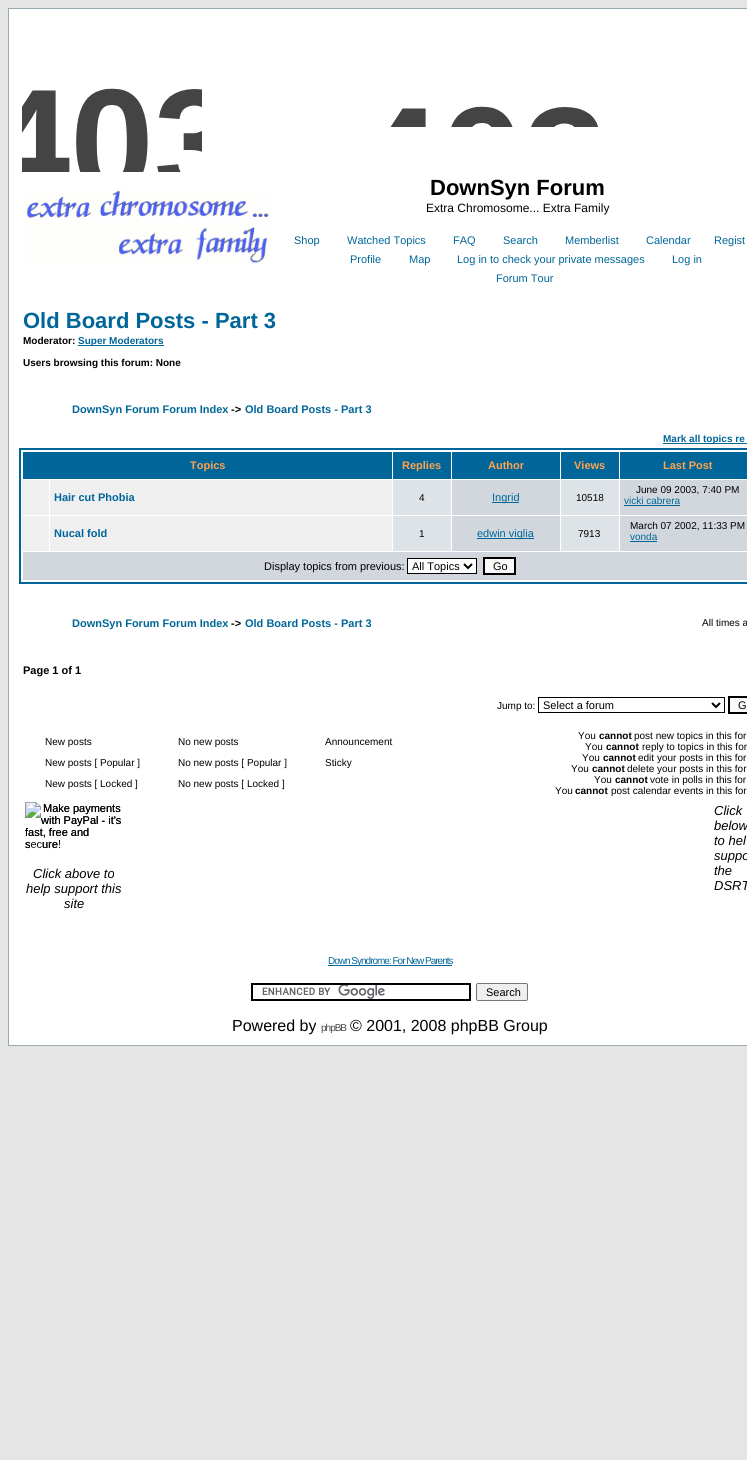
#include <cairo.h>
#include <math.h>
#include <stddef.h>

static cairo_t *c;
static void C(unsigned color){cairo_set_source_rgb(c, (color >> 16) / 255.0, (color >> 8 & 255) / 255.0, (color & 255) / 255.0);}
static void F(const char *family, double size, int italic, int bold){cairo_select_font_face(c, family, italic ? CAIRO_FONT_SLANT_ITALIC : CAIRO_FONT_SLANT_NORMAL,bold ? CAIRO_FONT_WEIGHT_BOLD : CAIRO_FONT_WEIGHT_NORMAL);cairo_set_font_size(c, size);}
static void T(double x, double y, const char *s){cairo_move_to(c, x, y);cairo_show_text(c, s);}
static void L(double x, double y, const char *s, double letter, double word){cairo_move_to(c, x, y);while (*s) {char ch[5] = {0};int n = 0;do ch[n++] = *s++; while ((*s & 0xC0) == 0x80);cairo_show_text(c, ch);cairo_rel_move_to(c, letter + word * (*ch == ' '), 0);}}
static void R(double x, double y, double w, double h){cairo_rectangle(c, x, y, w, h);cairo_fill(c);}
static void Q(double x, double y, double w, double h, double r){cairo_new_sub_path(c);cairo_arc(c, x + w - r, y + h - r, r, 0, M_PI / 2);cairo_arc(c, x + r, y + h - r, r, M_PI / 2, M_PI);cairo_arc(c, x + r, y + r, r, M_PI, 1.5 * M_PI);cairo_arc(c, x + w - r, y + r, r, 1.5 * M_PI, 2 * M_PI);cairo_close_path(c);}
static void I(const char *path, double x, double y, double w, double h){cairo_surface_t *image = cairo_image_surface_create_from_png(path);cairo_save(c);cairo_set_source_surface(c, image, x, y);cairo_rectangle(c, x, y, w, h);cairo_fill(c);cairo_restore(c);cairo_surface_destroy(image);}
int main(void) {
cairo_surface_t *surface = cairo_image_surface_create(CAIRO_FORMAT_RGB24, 747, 1460);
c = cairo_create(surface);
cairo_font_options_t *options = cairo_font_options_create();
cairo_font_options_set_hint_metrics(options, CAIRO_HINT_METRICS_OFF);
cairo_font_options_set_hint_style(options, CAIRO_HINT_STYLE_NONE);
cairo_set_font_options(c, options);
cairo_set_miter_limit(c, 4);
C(0xe5e5e5);
cairo_paint(c);
C(0xffffff);
cairo_rectangle(c,8.5,8.5,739,1037);
cairo_fill_preserve(c);
C(0x98aab1);
cairo_set_line_width(c,1);
cairo_stroke(c);
I("1.png",22,88,180,84);
I("2.png",390,106,208,21);
I("3.png",26,190,243,74);
F("Liberation Sans",22,0,1);
C(0x000000);
T(430,195,"DownSyn Forum");
F("Liberation Sans",12,0,0);
T(426,212,"Extra Chromosome... Extra Family");
F("Liberation Sans",11,0,0);
C(0x006699);
T(294,244,"Shop");
T(347,244,"Watched Topics");
T(453,244,"FAQ");
T(503,244,"Search");
T(565,244,"Memberlist");
T(646,244,"Calendar");
T(714,244,"Regist");
T(350,263,"Profile");
T(409,263,"Map");
T(457,263,"Log in to check your private messages");
T(672,263,"Log in");
T(496,282,"Forum Tour");
F("Liberation Sans",22,0,1);
T(23,328,"Old Board Posts - Part 3");
F("Liberation Sans",10,0,1);
C(0x000000);
T(23,344,"Moderator:");
C(0x006699);
R(78,345,86,1);
T(78,344,"Super Moderators");
C(0x000000);
T(23,366,"Users browsing this forum: None");
F("Liberation Sans",11,0,1);
C(0x006699);
T(72,413,"DownSyn Forum Forum Index");
C(0x000000);
T(231,413,"->");
C(0x006699);
T(245,413,"Old Board Posts - Part 3");
R(663,443,84,1);
F("Liberation Sans",10,0,1);
T(663,442,"Mark all topics re");
cairo_rectangle(c,20,449,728,134);
cairo_set_line_width(c,2);
cairo_stroke(c);
R(23,452,369,27);
F("Liberation Sans",11,0,1);
C(0xffa34f);
T(190,469,"Topics");
C(0x006699);
R(393,452,58,27);
C(0xffa34f);
T(402,469,"Replies");
C(0x006699);
R(452,452,108,27);
C(0xffa34f);
T(488,469,"Author");
C(0x006699);
R(561,452,58,27);
C(0xffa34f);
T(574,469,"Views");
C(0x006699);
R(620,452,127,27);
C(0xffa34f);
T(663,469,"Last Post");
C(0xefefef);
R(22,480,27,35);
R(50,480,342,35);
C(0x006699);
T(54,501,"Hair cut Phobia");
C(0xdee3e7);
R(393,480,58,35);
F("Liberation Sans",10,0,0);
C(0x000000);
T(419,501,"4");
C(0xd1d7dc);
R(452,480,108,35);
C(0x006699);
R(492,502,27,1);
F("Liberation Sans",11,0,0);
T(492,501,"Ingrid");
C(0xdee3e7);
R(561,480,58,35);
F("Liberation Sans",10,0,0);
C(0x000000);
T(576,501,"10518");
C(0xd1d7dc);
R(620,480,127,35);
C(0x000000);
T(636,493,"June 09 2003, 7:40 PM");
C(0x006699);
T(624,504,"vicki cabrera");
R(624,505,56,1);
C(0xefefef);
R(22,516,27,35);
R(50,516,342,35);
F("Liberation Sans",11,0,1);
C(0x006699);
T(54,537,"Nucal fold");
C(0xdee3e7);
R(393,516,58,35);
F("Liberation Sans",10,0,0);
C(0x000000);
T(419,537,"1");
C(0xd1d7dc);
R(452,516,108,35);
C(0x006699);
R(477,538,57,1);
F("Liberation Sans",11,0,0);
T(477,537,"edwin viglia");
C(0xdee3e7);
R(561,516,58,35);
F("Liberation Sans",10,0,0);
C(0x000000);
T(578,537,"7913");
C(0xd1d7dc);
R(620,516,127,35);
C(0x000000);
T(630,529,"March 07 2002, 11:33 PM");
C(0x006699);
T(630,540,"vonda");
R(630,541,27,1);
C(0xd1d7dc);
R(23,552,724,28);
F("Liberation Sans",11,0,0);
C(0x000000);
T(264,570,"Display topics from previous:");
C(0xffffff);
cairo_rectangle(c,407.5,558.5,69,15);
cairo_fill_preserve(c);
C(0x000000);
cairo_set_line_width(c,1);
cairo_stroke(c);
cairo_new_path(c);
cairo_move_to(c,464,564);
cairo_line_to(c,468,568);
cairo_line_to(c,472,564);
cairo_set_line_width(c,2);
cairo_stroke(c);
T(412,570,"All Topics");
C(0xfafafa);
cairo_rectangle(c,484,558,31,16);
cairo_fill_preserve(c);
C(0x000000);
cairo_stroke(c);
T(493,570,"Go");
F("Liberation Sans",11,0,1);
C(0x006699);
T(72,627,"DownSyn Forum Forum Index");
C(0x000000);
T(231,627,"->");
C(0x006699);
T(245,627,"Old Board Posts - Part 3");
F("Liberation Sans",10,0,0);
C(0x000000);
T(702,626,"All times a");
F("Liberation Sans",11,0,1);
T(23,674,"Page 1 of 1");
F("Liberation Sans",10,0,0);
T(497,709,"Jump to:");
cairo_rectangle(c,538.5,697.5,186,15);
cairo_set_line_width(c,1);
cairo_stroke(c);
cairo_new_path(c);
cairo_move_to(c,712,703);
cairo_line_to(c,716,707);
cairo_line_to(c,720,703);
cairo_set_line_width(c,2);
cairo_stroke(c);
F("Liberation Sans",11,0,0);
T(543,709,"Select a forum");
C(0xfafafa);
cairo_rectangle(c,729,697,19,16);
cairo_fill_preserve(c);
C(0x000000);
cairo_stroke(c);
T(738,709,"G");
F("Liberation Sans",10,0,0);
T(45,745,"New posts");
T(178,745,"No new posts");
T(325,745,"Announcement");
T(45,766,"New posts [ Popular ]");
T(178,766,"No new posts [ Popular ]");
T(325,766,"Sticky");
T(45,787,"New posts [ Locked ]");
T(178,787,"No new posts [ Locked ]");
T(578,739,"You");
F("Liberation Sans",10,0,1);
T(599,739,"cannot");
F("Liberation Sans",10,0,0);
T(634,739,"post new topics in this for");
T(585,750,"You");
F("Liberation Sans",10,0,1);
T(606,750,"cannot");
F("Liberation Sans",10,0,0);
T(642,750,"reply to topics in this for");
T(582,761,"You");
F("Liberation Sans",10,0,1);
T(603,761,"cannot");
F("Liberation Sans",10,0,0);
T(638,761,"edit your posts in this for");
T(571,772,"You");
F("Liberation Sans",10,0,1);
T(592,772,"cannot");
F("Liberation Sans",10,0,0);
T(627,772,"delete your posts in this for");
T(594,783,"You");
F("Liberation Sans",10,0,1);
T(615,783,"cannot");
F("Liberation Sans",10,0,0);
T(650,783,"vote in polls in this for");
T(555,794,"You");
F("Liberation Sans",10,0,1);
T(575,794,"cannot");
F("Liberation Sans",10,0,0);
T(611,794,"post calendar events in this for");
I("4.png",25,802,96,46);
F("Liberation Sans",11,0,0);
T(43,812,"Make payments");
T(41,824,"with PayPal - it's");
T(25,836,"fast, free and");
T(25,848,"s");
T(42,848,"ure");
F("Liberation Sans",13,1,0);
T(33,878,"Click above to");
T(26,893,"help support this");
T(64,908,"site");
T(714,815,"Click");
T(714,830,"below");
T(714,845,"to hel");
T(714,860,"suppo");
T(714,875,"the");
T(714,890,"DSRT");
C(0x006699);
R(328,965,124,1);
F("Liberation Sans",10,0,0);
L(328,964,"Down Syndrome: For New Parents",-1,0);
I("5.png",262,985,123,14);
cairo_rectangle(c,252,984,218,16);
C(0x000000);
cairo_stroke(c);
C(0xefefef);
Q(476.5,983.5,51,17,1.5);
cairo_fill_preserve(c);
C(0x767676);
cairo_set_line_width(c,1);
cairo_stroke(c);
F("Liberation Sans",11,0,0);
C(0x000000);
T(486,996,"Search");
F("Liberation Sans",16,0,0);
T(232,1031,"Powered by");
F("Liberation Sans",10,0,0);
C(0x444444);
L(321,1031,"phpBB",-1,0);
F("Liberation Sans",16,0,0);
C(0x000000);
T(350,1031,"© 2001, 2008 phpBB Group");
cairo_surface_write_to_png(surface, "o.png");
cairo_font_options_destroy(options);
cairo_destroy(c);
cairo_surface_destroy(surface);
return 0;
}
